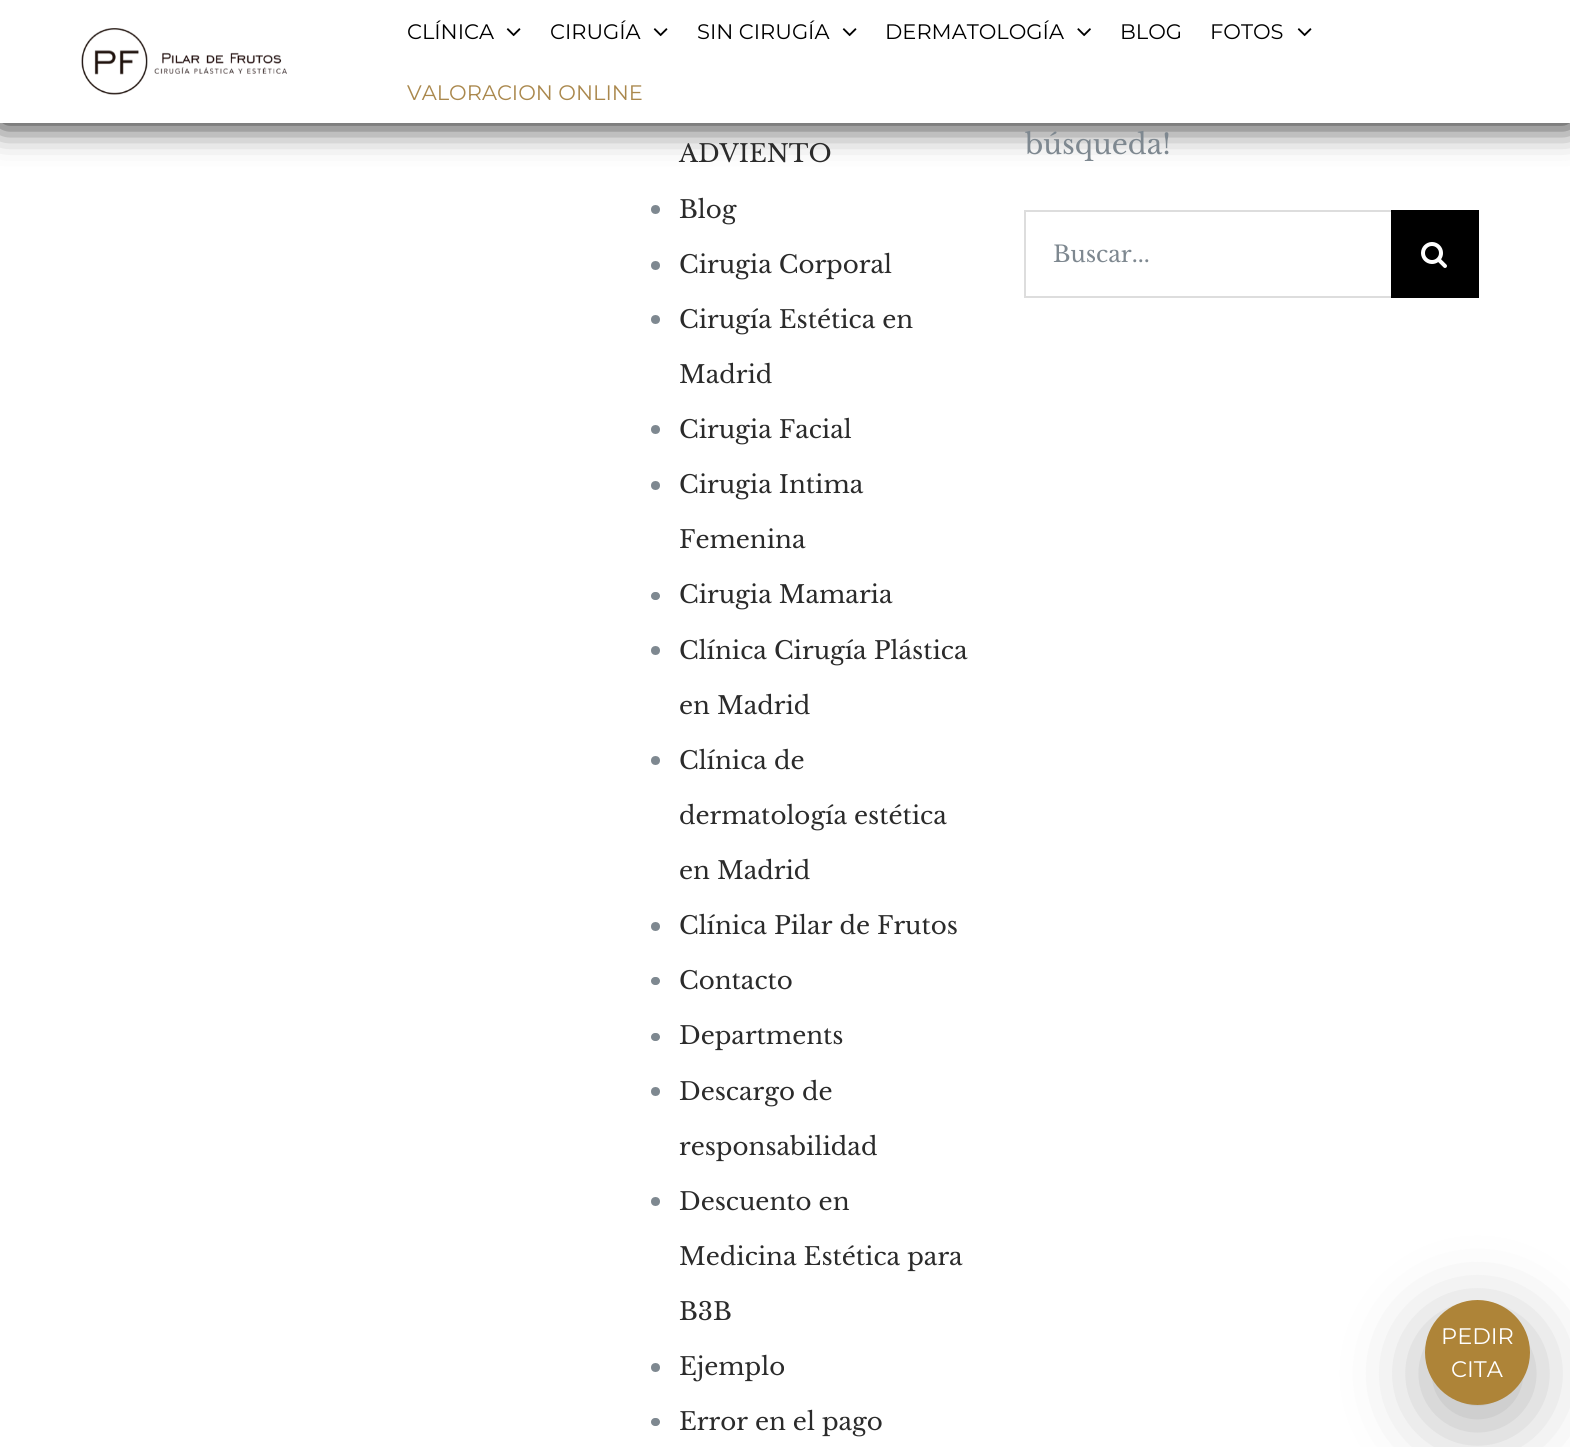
#include <cairo.h>
#include <math.h>
#include <stddef.h>

static cairo_t *c;
static void C(unsigned color){cairo_set_source_rgb(c, (color >> 16) / 255.0, (color >> 8 & 255) / 255.0, (color & 255) / 255.0);}
static void F(const char *family, double size, int italic, int bold){cairo_select_font_face(c, family, italic ? CAIRO_FONT_SLANT_ITALIC : CAIRO_FONT_SLANT_NORMAL,bold ? CAIRO_FONT_WEIGHT_BOLD : CAIRO_FONT_WEIGHT_NORMAL);cairo_set_font_size(c, size);}
static void T(double x, double y, const char *s){cairo_move_to(c, x, y);cairo_show_text(c, s);}
static void R(double x, double y, double w, double h){cairo_rectangle(c, x, y, w, h);cairo_fill(c);}
static void Q(double x, double y, double w, double h, double r){cairo_new_sub_path(c);cairo_arc(c, x + w - r, y + h - r, r, 0, M_PI / 2);cairo_arc(c, x + r, y + h - r, r, M_PI / 2, M_PI);cairo_arc(c, x + r, y + r, r, M_PI, 1.5 * M_PI);cairo_arc(c, x + w - r, y + r, r, 1.5 * M_PI, 2 * M_PI);cairo_close_path(c);}
static void S(double x, double y, double w, double h, double r, double blur, double alpha){cairo_push_group_with_content(c, CAIRO_CONTENT_ALPHA);cairo_set_operator(c, CAIRO_OPERATOR_SOURCE);for (int i = 15; i >= -15 && fmin(w, h) + blur * i / 3 > 0; i -= 2) {double e = blur * i / 6;cairo_set_source_rgba(c, 0, 0, 0, alpha * erfc((i - 1) / 8.5) / 2);Q(x - e, y - e, w + 2 * e, h + 2 * e, fmax(0, fmin(r + e + blur * .6, fmin(w, h) / 2 + e)));cairo_fill(c);}cairo_pattern_t *soft = cairo_pop_group(c);cairo_mask(c, soft);cairo_pattern_destroy(soft);}
static void I(const char *path, double x, double y, double w, double h){cairo_surface_t *image = cairo_image_surface_create_from_png(path);cairo_save(c);cairo_set_source_surface(c, image, x, y);cairo_rectangle(c, x, y, w, h);cairo_fill(c);cairo_restore(c);cairo_surface_destroy(image);}
int main(void) {
cairo_surface_t *surface = cairo_image_surface_create(CAIRO_FORMAT_RGB24, 1570, 1447);
c = cairo_create(surface);
cairo_font_options_t *options = cairo_font_options_create();
cairo_font_options_set_hint_metrics(options, CAIRO_HINT_METRICS_OFF);
cairo_font_options_set_hint_style(options, CAIRO_HINT_STYLE_NONE);
cairo_set_font_options(c, options);
cairo_set_miter_limit(c, 4);
C(0xffffff);
cairo_paint(c);
C(0x000000);
S(0,0,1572,123,0,17.5,1);
C(0xffffff);
R(0,0,1570,123);
I("1.png",81,28,206,67);
F("Montserrat Thin",21,0,0);
C(0x000000);
T(407,39,"CLÍNICA");
I("2.png",506,28,15,9);
T(550,39,"CIRUGÍA");
I("2.png",653,28,15,9);
T(697,39,"SIN CIRUGÍA");
I("2.png",842,28,15,9);
T(885,39,"DERMATOLOGÍA");
I("3.png",1077,28,14,9);
T(1120,39,"BLOG");
T(1210,39,"FOTOS");
I("2.png",1297,28,15,9);
C(0xaa884d);
T(407,100,"VALORACION ONLINE");
F("Libre Baskerville",24.5,0,0);
C(0x2b2b2b);
T(679,162,"ADVIENTO");
C(0x7e8890);
cairo_new_path(c);
cairo_arc(c,655.5,209.5,4.5,0,2 * M_PI);
cairo_fill(c);
C(0x2b2b2b);
T(679,218,"Blog");
C(0x7e8890);
cairo_new_path(c);
cairo_arc(c,655.5,265.5,4.5,0,2 * M_PI);
cairo_fill(c);
C(0x2b2b2b);
T(679,273,"Cirugia Corporal");
C(0x7e8890);
cairo_new_path(c);
cairo_arc(c,655.5,319.5,4.5,0,2 * M_PI);
cairo_fill(c);
C(0x2b2b2b);
T(679,328,"Cirugía Estética en");
T(679,383,"Madrid");
C(0x7e8890);
cairo_new_path(c);
cairo_arc(c,655.5,429.5,4.5,0,2 * M_PI);
cairo_fill(c);
C(0x2b2b2b);
T(679,438,"Cirugia Facial");
C(0x7e8890);
cairo_new_path(c);
cairo_arc(c,655.5,485.5,4.5,0,2 * M_PI);
cairo_fill(c);
C(0x2b2b2b);
T(679,493,"Cirugia Intima");
T(679,548,"Femenina");
C(0x7e8890);
Q(651,592,9,8,4);
cairo_fill(c);
C(0x2b2b2b);
T(679,603,"Cirugia Mamaria");
C(0x7e8890);
cairo_new_path(c);
cairo_arc(c,655.5,650.5,4.5,0,2 * M_PI);
cairo_fill(c);
C(0x2b2b2b);
T(679,659,"Clínica Cirugía Plástica");
T(679,714,"en Madrid");
C(0x7e8890);
cairo_new_path(c);
cairo_arc(c,655.5,760.5,4.5,0,2 * M_PI);
cairo_fill(c);
C(0x2b2b2b);
T(679,769,"Clínica de");
T(679,824,"dermatología estética");
T(679,879,"en Madrid");
C(0x7e8890);
cairo_new_path(c);
cairo_arc(c,655.5,926.5,4.5,0,2 * M_PI);
cairo_fill(c);
C(0x2b2b2b);
T(679,934,"Clínica Pilar de Frutos");
C(0x7e8890);
Q(651,977,9,8,4);
cairo_fill(c);
C(0x2b2b2b);
T(679,989,"Contacto");
C(0x7e8890);
Q(651,1033,9,8,4);
cairo_fill(c);
C(0x2b2b2b);
T(679,1044,"Departments");
C(0x7e8890);
cairo_new_path(c);
cairo_arc(c,655.5,1091.5,4.5,0,2 * M_PI);
cairo_fill(c);
C(0x2b2b2b);
T(679,1100,"Descargo de");
T(679,1155,"responsabilidad");
C(0x7e8890);
cairo_new_path(c);
cairo_arc(c,655.5,1201.5,4.5,0,2 * M_PI);
cairo_fill(c);
C(0x2b2b2b);
T(679,1210,"Descuento en");
T(679,1265,"Medicina Estética para");
T(679,1320,"B3B");
C(0x7e8890);
cairo_new_path(c);
cairo_arc(c,655.5,1367.5,4.5,0,2 * M_PI);
cairo_fill(c);
C(0x2b2b2b);
T(679,1375,"Ejemplo");
C(0x7e8890);
Q(651,1418,9,8,4);
cairo_fill(c);
C(0x2b2b2b);
T(679,1430,"Error en el pago");
F("Libre Baskerville",28,0,0);
C(0x7e8890);
T(1025,154,"búsqueda!");
C(0xdddddd);
R(1024,210,367,2);
R(1024,296,367,2);
R(1024,210,2,88);
F("Libre Baskerville",22.75,0,0);
C(0x7e8890);
T(1053,262,"Buscar...");
C(0x000000);
R(1391,210,88,88);
I("4.png",1421,242,26,26);
C(0x000000);
S(1425,1321,105,105,52.5,39.5,.3);
C(0xae8438);
cairo_arc(c,1477.5,1352.5,52.5,0,2 * M_PI);
cairo_fill(c);
F("Montserrat Thin",22.5,0,0);
C(0xffffff);
T(1441,1344,"PEDIR");
T(1451,1377,"CITA");
cairo_surface_write_to_png(surface, "o.png");
cairo_font_options_destroy(options);
cairo_destroy(c);
cairo_surface_destroy(surface);
return 0;
}
